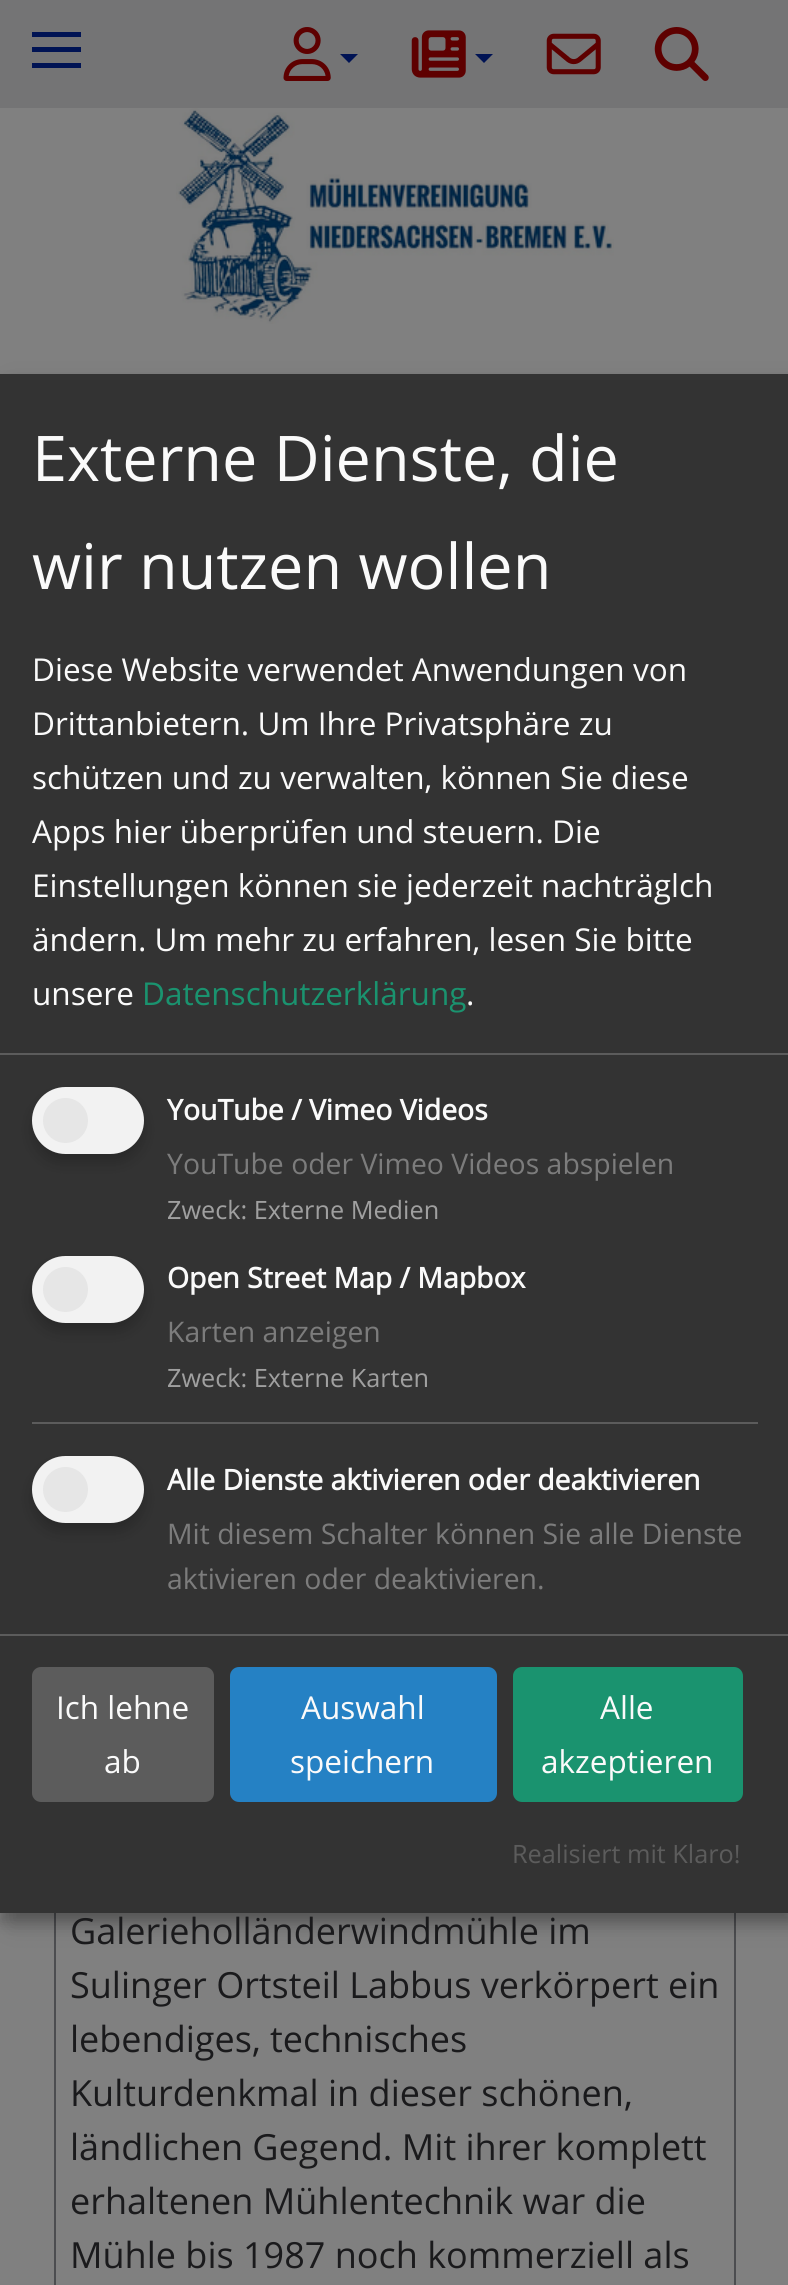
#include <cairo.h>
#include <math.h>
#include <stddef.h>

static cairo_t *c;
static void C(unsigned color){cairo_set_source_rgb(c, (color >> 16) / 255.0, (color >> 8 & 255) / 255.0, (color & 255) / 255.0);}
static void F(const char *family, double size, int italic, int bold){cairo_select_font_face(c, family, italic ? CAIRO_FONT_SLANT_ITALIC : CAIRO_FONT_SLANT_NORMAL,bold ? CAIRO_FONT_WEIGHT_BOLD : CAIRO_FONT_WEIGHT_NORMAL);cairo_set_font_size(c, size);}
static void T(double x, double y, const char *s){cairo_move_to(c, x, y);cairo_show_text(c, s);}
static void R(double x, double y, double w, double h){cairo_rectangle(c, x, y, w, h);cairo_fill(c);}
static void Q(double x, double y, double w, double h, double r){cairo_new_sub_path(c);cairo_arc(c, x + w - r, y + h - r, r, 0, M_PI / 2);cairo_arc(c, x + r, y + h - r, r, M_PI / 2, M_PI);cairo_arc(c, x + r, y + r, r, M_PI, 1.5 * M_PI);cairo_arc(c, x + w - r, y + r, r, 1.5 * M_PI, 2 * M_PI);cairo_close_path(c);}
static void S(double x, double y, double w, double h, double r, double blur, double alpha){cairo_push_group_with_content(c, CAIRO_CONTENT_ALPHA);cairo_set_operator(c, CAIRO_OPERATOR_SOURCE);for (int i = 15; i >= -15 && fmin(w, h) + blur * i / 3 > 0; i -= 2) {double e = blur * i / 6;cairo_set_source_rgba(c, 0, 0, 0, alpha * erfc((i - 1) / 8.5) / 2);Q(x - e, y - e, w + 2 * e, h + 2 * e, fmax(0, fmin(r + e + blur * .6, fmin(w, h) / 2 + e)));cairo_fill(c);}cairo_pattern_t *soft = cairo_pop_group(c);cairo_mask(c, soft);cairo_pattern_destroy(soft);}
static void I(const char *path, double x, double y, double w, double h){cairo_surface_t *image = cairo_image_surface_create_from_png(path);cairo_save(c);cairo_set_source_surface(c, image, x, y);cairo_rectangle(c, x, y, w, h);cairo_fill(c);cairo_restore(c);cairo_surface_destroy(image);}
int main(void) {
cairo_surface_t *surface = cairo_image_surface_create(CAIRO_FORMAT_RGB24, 788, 2285);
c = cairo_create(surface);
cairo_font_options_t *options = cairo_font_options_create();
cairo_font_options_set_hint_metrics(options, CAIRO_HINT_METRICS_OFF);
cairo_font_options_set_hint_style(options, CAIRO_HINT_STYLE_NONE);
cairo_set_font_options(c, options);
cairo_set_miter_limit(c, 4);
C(0x808080);
cairo_paint(c);
C(0x4c4d50);
R(734,1913,2,372);
R(54,1913,2,372);
C(0x000000);
S(11,385,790,1539,0,11,.19);
S(0,383,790,1539,0,7,.2);
C(0x333333);
R(0,374,788,1539);
C(0x5c5c5c);
R(0,1053,788,2);
F("Open Sans",63,0,0);
C(0xfafafa);
T(32,481,"Externe Dienste, die");
T(32,589,"wir nutzen wollen");
F("Open Sans",31.5,0,0);
T(32,681,"Diese Website verwendet Anwendungen von");
T(32,735,"Drittanbietern. Um Ihre Privatsphäre zu");
T(32,789,"schützen und zu verwalten, können Sie diese");
T(32,843,"Apps hier überprüfen und steuern. Die");
T(32,897,"Einstellungen können sie jederzeit nachträglch");
T(32,951,"ändern. Um mehr zu erfahren, lesen Sie bitte");
T(32,1005,"unsere");
C(0x1a936f);
T(142,1005,"Datenschutzerklärung");
C(0xfafafa);
T(466,1005,".");
C(0x000000);
S(32,1096,112,67,33.5,7,.2);
C(0xf2f2f2);
Q(32,1087,112,67,33.5);
cairo_fill(c);
C(0xe6e6e6);
cairo_arc(c,65.5,1120.5,22.5,0,2 * M_PI);
cairo_fill(c);
F("Open Sans",28.35,0,1);
C(0xfafafa);
T(167,1120,"YouTube / Vimeo Videos");
F("Open Sans",28.35,0,0);
C(0x7c7c7c);
T(167,1174,"YouTube oder Vimeo Videos abspielen");
F("Open Sans",25.25,0,0);
C(0xa0a0a0);
T(167,1219,"Zweck: Externe Medien");
C(0x000000);
S(32,1265,112,67,33.5,7,.2);
C(0xf2f2f2);
Q(32,1256,112,67,33.5);
cairo_fill(c);
C(0xe6e6e6);
cairo_arc(c,65.5,1289.5,22.5,0,2 * M_PI);
cairo_fill(c);
F("Open Sans",28.35,0,1);
C(0xfafafa);
T(167,1288,"Open Street Map / Mapbox");
F("Open Sans",28.35,0,0);
C(0x7c7c7c);
T(167,1342,"Karten anzeigen");
F("Open Sans",25.25,0,0);
C(0xa0a0a0);
T(167,1387,"Zweck: Externe Karten");
C(0x5c5c5c);
R(32,1422,726,2);
C(0x000000);
S(32,1465,112,67,33.5,7,.2);
C(0xf2f2f2);
Q(32,1456,112,67,33.5);
cairo_fill(c);
C(0xe6e6e6);
cairo_arc(c,65.5,1489.5,22.5,0,2 * M_PI);
cairo_fill(c);
F("Open Sans",28.35,0,1);
C(0xfafafa);
T(167,1490,"Alle Dienste aktivieren oder deaktivieren");
F("Open Sans",28.35,0,0);
C(0x7c7c7c);
T(167,1544,"Mit diesem Schalter können Sie alle Dienste");
T(167,1589,"aktivieren oder deaktivieren.");
C(0x5c5c5c);
R(0,1634,788,2);
Q(32,1667,182,135,9);
cairo_fill(c);
F("Open Sans",31.5,0,0);
C(0xfafafa);
T(56,1719,"Ich lehne");
T(104,1773,"ab");
C(0x2581c4);
Q(230,1667,267,135,9);
cairo_fill(c);
C(0xfafafa);
T(301,1719,"Auswahl");
T(290,1773,"speichern");
C(0x1a936f);
Q(513,1667,230,135,9);
cairo_fill(c);
C(0xfafafa);
T(600,1719,"Alle");
T(541,1773,"akzeptieren");
F("Open Sans",25.25,0,0);
C(0x5c5c5c);
T(512,1863,"Realisiert mit Klaro!");
C(0x747475);
R(0,0,788,108);
I("1.png",283,27,48,54);
C(0x001354);
cairo_new_path(c);
cairo_move_to(c,340,54);
cairo_line_to(c,358,54);
cairo_line_to(c,349,63);
cairo_close_path(c);
cairo_fill(c);
I("2.png",411,30,55,48);
cairo_new_path(c);
cairo_move_to(c,475,54);
cairo_line_to(c,493,54);
cairo_line_to(c,484,63);
cairo_close_path(c);
cairo_fill(c);
I("3.png",546,33,55,42);
I("4.png",654,27,55,54);
I("5.png",176,108,438,216);
R(32,47,49,5);
R(32,32,49,5);
R(32,63,49,5);
F("Open Sans",36,0,0);
C(0x1a1a1c);
T(70,1944,"Galerieholländerwindmühle im");
T(70,1998,"Sulinger Ortsteil Labbus verkörpert ein");
T(70,2052,"lebendiges, technisches");
T(70,2106,"Kulturdenkmal in dieser schönen,");
T(70,2160,"ländlichen Gegend. Mit ihrer komplett");
T(70,2214,"erhaltenen Mühlentechnik war die");
T(70,2268,"Mühle bis 1987 noch kommerziell als");
cairo_surface_write_to_png(surface, "o.png");
cairo_font_options_destroy(options);
cairo_destroy(c);
cairo_surface_destroy(surface);
return 0;
}
